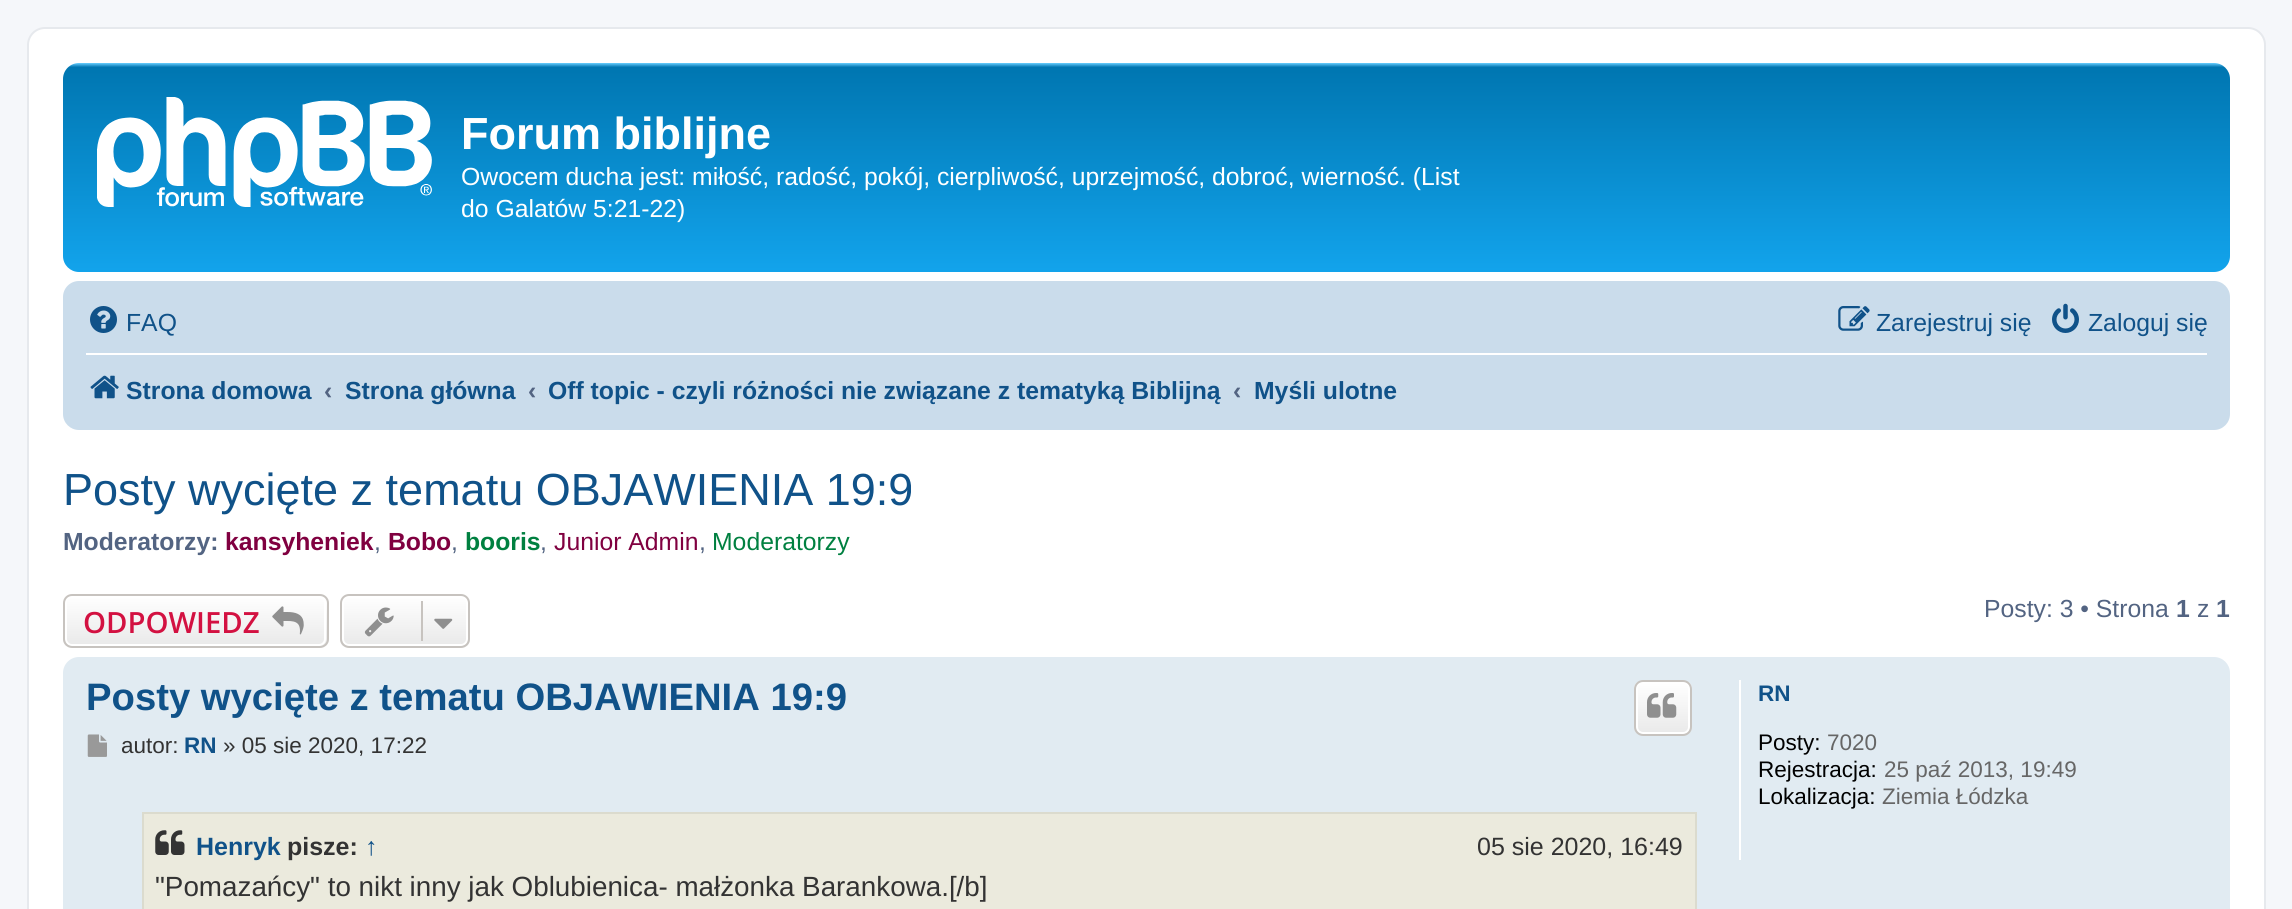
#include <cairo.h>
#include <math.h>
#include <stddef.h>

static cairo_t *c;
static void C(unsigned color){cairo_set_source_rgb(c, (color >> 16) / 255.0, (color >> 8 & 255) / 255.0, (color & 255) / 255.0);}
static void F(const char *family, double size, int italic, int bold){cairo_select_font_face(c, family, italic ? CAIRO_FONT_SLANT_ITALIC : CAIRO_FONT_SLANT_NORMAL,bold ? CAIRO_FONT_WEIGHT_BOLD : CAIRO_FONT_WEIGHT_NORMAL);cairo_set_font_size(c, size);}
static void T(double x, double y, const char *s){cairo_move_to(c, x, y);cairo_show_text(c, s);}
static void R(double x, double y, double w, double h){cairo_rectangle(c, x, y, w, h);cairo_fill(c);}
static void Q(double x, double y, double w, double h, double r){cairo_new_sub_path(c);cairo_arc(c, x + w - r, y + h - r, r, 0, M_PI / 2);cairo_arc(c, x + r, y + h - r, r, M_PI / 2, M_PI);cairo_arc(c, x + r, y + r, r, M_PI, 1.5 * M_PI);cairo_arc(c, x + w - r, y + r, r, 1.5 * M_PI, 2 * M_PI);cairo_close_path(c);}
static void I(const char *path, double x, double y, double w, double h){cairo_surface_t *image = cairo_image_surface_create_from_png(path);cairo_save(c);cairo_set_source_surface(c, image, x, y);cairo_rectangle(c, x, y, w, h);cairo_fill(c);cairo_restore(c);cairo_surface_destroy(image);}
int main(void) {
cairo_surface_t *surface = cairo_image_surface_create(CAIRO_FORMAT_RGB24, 2292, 909);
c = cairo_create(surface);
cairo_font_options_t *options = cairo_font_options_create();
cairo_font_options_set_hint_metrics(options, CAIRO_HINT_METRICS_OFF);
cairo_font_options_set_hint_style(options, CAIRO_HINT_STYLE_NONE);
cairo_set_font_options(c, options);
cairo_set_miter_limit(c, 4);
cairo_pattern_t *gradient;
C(0xf5f7fa);
cairo_paint(c);
C(0xffffff);
Q(28,28,2237,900,17);
cairo_fill_preserve(c);
C(0xe6e9ed);
cairo_stroke(c);
gradient = cairo_pattern_create_linear(1146,63,1146,272);
cairo_pattern_add_color_stop_rgba(gradient,0,0.416,0.808,1,1);
cairo_pattern_add_color_stop_rgba(gradient,.02,0,0.463,0.694,1);
cairo_pattern_add_color_stop_rgba(gradient,.99,0.071,0.639,0.922,1);
cairo_pattern_add_color_stop_rgba(gradient,1,0.071,0.639,0.922,1);
cairo_set_source(c,gradient);
cairo_pattern_destroy(gradient);
Q(63,63,2167,209,16);
cairo_fill(c);
I("1.png",97,97,335,110);
F("Liberation Sans",45,0,1);
C(0xffffff);
T(461,149,"Forum biblijne");
F("Liberation Sans",24.75,0,0);
T(461,185,"Owocem ducha jest: miłość, radość, pokój, cierpliwość, uprzejmość, dobroć, wierność. (List");
T(461,217,"do Galatów 5:21-22)");
C(0xcadceb);
Q(63,281,2167,149,16);
cairo_fill(c);
I("2.png",90,306,27,27);
C(0x105289);
T(126,331,"FAQ");
I("3.png",1838,306,32,25);
T(1876,331,"Zarejestruj się");
I("4.png",2052,303,27,30);
T(2088,331,"Zaloguj się");
C(0xffffff);
R(86,353,2121,2);
I("5.png",90,375,29,24);
F("Liberation Sans",24.75,0,1);
C(0x105289);
T(126,399,"Strona domowa");
C(0x536482);
T(324,399,"‹");
C(0x105289);
T(345,399,"Strona główna");
C(0x536482);
T(528,399,"‹");
C(0x105289);
T(548,399,"Off topic - czyli różności nie związane z tematyką Biblijną");
C(0x536482);
T(1233,399,"‹");
C(0x105289);
T(1254,399,"Myśli ulotne");
F("Liberation Sans",45,0,0);
T(63,505,"Posty wycięte z tematu OBJAWIENIA 19:9");
F("Liberation Sans",24.75,0,1);
C(0x536482);
T(63,550,"Moderatorzy:");
C(0x800040);
T(225,550,"kansyheniek");
F("Liberation Sans",24.75,0,0);
C(0x536482);
T(374,550,",");
F("Liberation Sans",24.75,0,1);
C(0x800040);
T(388,550,"Bobo");
F("Liberation Sans",24.75,0,0);
C(0x536482);
T(451,550,",");
F("Liberation Sans",24.75,0,1);
C(0x008040);
T(465,550,"booris");
F("Liberation Sans",24.75,0,0);
C(0x536482);
T(540,550,",");
C(0x800040);
T(554,550,"Junior Admin");
C(0x536482);
T(699,550,",");
C(0x008040);
T(712,550,"Moderatorzy");
cairo_save(c);
Q(63,594,266,54,9);
cairo_clip(c);
gradient = cairo_pattern_create_linear(196,596,196,646);
cairo_pattern_add_color_stop_rgba(gradient,0,1,1,1,1);
cairo_pattern_add_color_stop_rgba(gradient,1,0.914,0.914,0.914,1);
cairo_set_source(c,gradient);
cairo_pattern_destroy(gradient);
R(63,596,266,50);
cairo_restore(c);
Q(66,597,259,48,6);
C(0xffffff);
cairo_stroke(c);
Q(64,595,264,52,8);
C(0xc7c3bf);
cairo_stroke(c);
F("Open Sans SemiBold",29.25,0,0);
C(0xd31141);
T(83,633,"ODPOWIEDZ");
I("6.png",272,606,32,29);
cairo_save(c);
Q(340,594,130,54,9);
cairo_clip(c);
gradient = cairo_pattern_create_linear(405,596,405,646);
cairo_pattern_add_color_stop_rgba(gradient,0,1,1,1,1);
cairo_pattern_add_color_stop_rgba(gradient,1,0.914,0.914,0.914,1);
cairo_set_source(c,gradient);
cairo_pattern_destroy(gradient);
R(340,596,130,50);
cairo_restore(c);
Q(343,597,124,48,6);
C(0xffffff);
cairo_stroke(c);
Q(341,595,128,52,8);
C(0xc7c3bf);
cairo_stroke(c);
I("7.png",364,607,30,30);
R(421,601,2,40);
I("8.png",434,618,19,11);
F("Liberation Sans",24.75,0,0);
C(0x536482);
T(1984,617,"Posty: 3 • Strona");
F("Liberation Sans",24.75,0,1);
T(2176,617,"1");
F("Liberation Sans",24.75,0,0);
T(2197,617,"z");
F("Liberation Sans",24.75,0,1);
T(2216,617,"1");
C(0xe1ebf2);
Q(63,657,2167,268,16);
cairo_fill(c);
F("Liberation Sans",38.25,0,1);
C(0x105289);
T(86,710,"Posty wycięte z tematu OBJAWIENIA 19:9");
cairo_save(c);
Q(1634,680,58,56,9);
cairo_clip(c);
gradient = cairo_pattern_create_linear(1663,682,1663,734);
cairo_pattern_add_color_stop_rgba(gradient,0,1,1,1,1);
cairo_pattern_add_color_stop_rgba(gradient,1,0.914,0.914,0.914,1);
cairo_set_source(c,gradient);
cairo_pattern_destroy(gradient);
R(1634,682,58,52);
cairo_restore(c);
Q(1637,683,52,50,6);
C(0xffffff);
cairo_stroke(c);
Q(1635,681,56,54,8);
C(0xc7c3bf);
cairo_stroke(c);
I("9.png",1647,693,30,25);
I("10.png",87,734,20,23);
F("Liberation Sans",22.5,0,0);
C(0x333333);
T(121,753,"autor:");
F("Liberation Sans",22.5,0,1);
C(0x105289);
T(184,753,"RN");
F("Liberation Sans",22.5,0,0);
C(0x333333);
T(223,753,"» 05 sie 2020, 17:22");
C(0xebeadd);
cairo_rectangle(c,143,813,1553,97);
cairo_fill_preserve(c);
C(0xdbdbce);
cairo_stroke(c);
I("11.png",155,830,30,25);
F("Liberation Sans",25,0,1);
C(0x105289);
T(196,855,"Henryk");
C(0x333333);
T(287,855,"pisze:");
C(0x105289);
T(365,855,"↑");
F("Liberation Sans",25,0,0);
C(0x333333);
T(1477,855,"05 sie 2020, 16:49");
F("Liberation Sans",27.8,0,0);
T(155,896,"\"Pomazańcy\" to nikt inny jak Oblubienica- małżonka Barankowa.[/b]");
C(0xffffff);
R(1739,680,2,180);
F("Liberation Sans",22.5,0,1);
C(0x105289);
T(1758,701,"RN");
F("Liberation Sans",22.5,0,0);
C(0x000000);
T(1758,750,"Posty:");
C(0x666666);
T(1827,750,"7020");
C(0x000000);
T(1758,777,"Rejestracja:");
C(0x666666);
T(1884,777,"25 paź 2013, 19:49");
C(0x000000);
T(1758,804,"Lokalizacja:");
C(0x666666);
T(1882,804,"Ziemia Łódzka");
cairo_surface_write_to_png(surface, "o.png");
cairo_font_options_destroy(options);
cairo_destroy(c);
cairo_surface_destroy(surface);
return 0;
}
